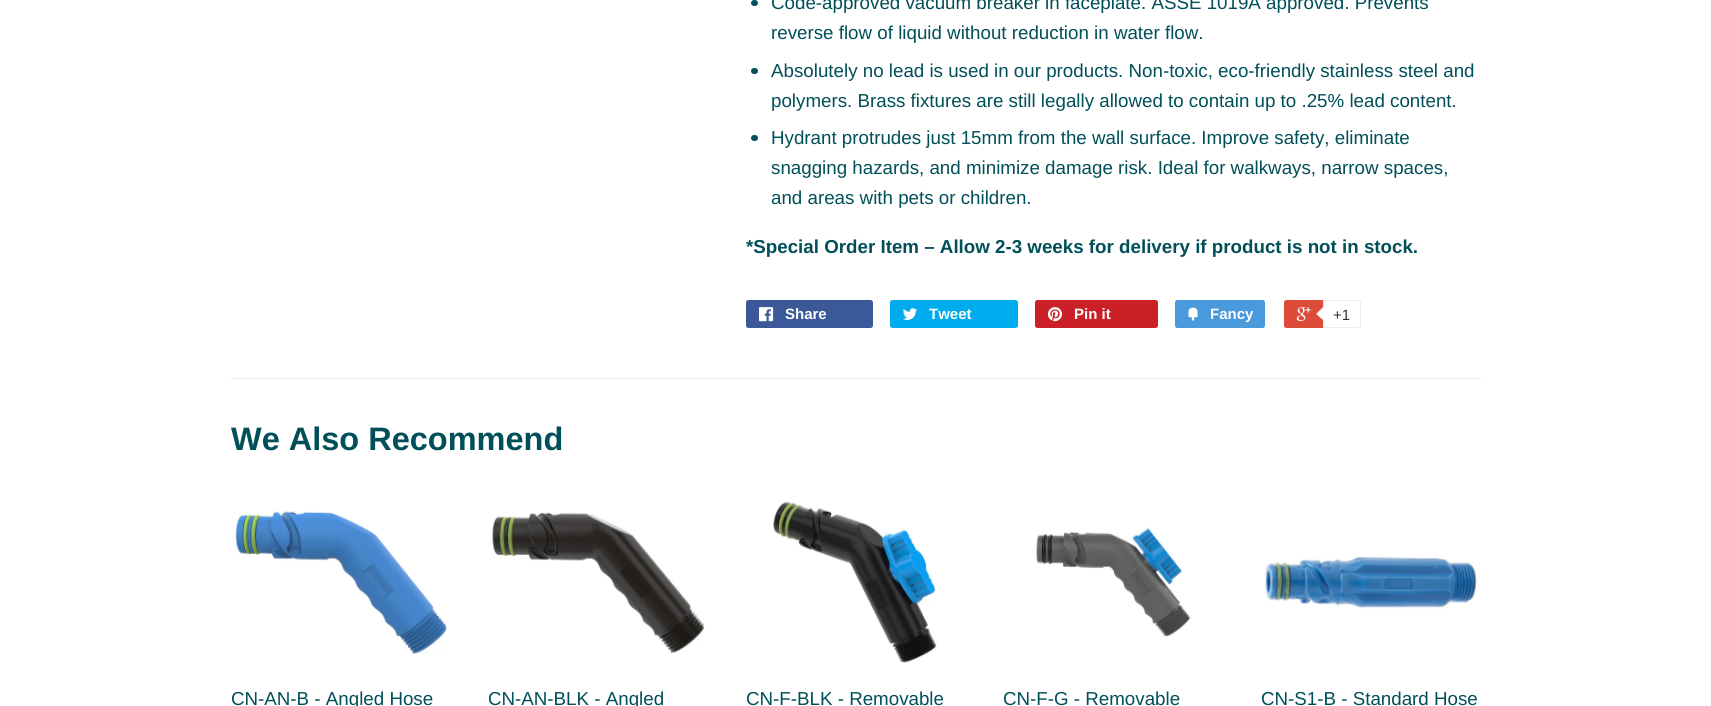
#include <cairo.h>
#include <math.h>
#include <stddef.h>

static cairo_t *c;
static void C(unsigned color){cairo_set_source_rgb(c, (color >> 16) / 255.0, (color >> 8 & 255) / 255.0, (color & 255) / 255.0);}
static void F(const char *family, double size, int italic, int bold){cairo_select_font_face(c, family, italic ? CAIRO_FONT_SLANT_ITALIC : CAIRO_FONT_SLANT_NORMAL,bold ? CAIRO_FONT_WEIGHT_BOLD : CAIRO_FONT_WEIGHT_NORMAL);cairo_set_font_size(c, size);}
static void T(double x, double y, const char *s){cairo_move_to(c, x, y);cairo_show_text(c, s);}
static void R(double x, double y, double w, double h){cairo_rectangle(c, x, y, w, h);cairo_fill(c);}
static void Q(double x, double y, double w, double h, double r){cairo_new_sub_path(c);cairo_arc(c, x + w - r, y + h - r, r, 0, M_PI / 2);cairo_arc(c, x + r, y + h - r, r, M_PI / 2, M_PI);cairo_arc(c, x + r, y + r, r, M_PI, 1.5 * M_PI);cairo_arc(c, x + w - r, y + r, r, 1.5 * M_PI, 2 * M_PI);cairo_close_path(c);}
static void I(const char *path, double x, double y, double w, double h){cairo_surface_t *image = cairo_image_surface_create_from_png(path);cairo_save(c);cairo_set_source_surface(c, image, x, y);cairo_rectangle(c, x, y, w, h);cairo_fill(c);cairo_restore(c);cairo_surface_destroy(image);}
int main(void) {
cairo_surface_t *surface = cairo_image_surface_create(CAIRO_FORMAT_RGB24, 1711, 706);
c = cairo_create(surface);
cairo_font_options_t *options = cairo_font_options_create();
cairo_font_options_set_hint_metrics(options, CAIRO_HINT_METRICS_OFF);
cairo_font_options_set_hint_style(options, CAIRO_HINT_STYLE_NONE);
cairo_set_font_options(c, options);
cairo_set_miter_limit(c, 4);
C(0xffffff);
cairo_paint(c);
C(0x004f59);
Q(751,0,7,6,3);
cairo_fill(c);
F("Liberation Sans",18.75,0,0);
T(771,9,"Code-approved vacuum breaker in faceplate. ASSE 1019A approved. Prevents");
T(771,39,"reverse flow of liquid without reduction in water flow.");
Q(751,68,7,6,3);
cairo_fill(c);
T(771,77,"Absolutely no lead is used in our products. Non-toxic, eco-friendly stainless steel and");
T(771,107,"polymers. Brass fixtures are still legally allowed to contain up to .25% lead content.");
Q(751,135,7,6,3);
cairo_fill(c);
T(771,144,"Hydrant protrudes just 15mm from the wall surface. Improve safety, eliminate");
T(771,174,"snagging hazards, and minimize damage risk. Ideal for walkways, narrow spaces,");
T(771,204,"and areas with pets or children.");
F("Liberation Sans",18.75,0,1);
T(746,253,"*Special Order Item – Allow 2-3 weeks for delivery if product is not in stock.");
C(0x3b5998);
Q(746,300,127,28,2.5);
cairo_fill(c);
I("1.png",759,307,15,15);
F("Liberation Sans",15,0,1);
C(0xffffff);
T(785,319,"Share");
C(0x00aced);
Q(890,300,128,28,2.5);
cairo_fill(c);
I("2.png",902,308,15,12);
C(0xffffff);
T(929,319,"Tweet");
C(0xcb2027);
Q(1035,300,123,28,2.5);
cairo_fill(c);
I("3.png",1047,307,15,15);
C(0xffffff);
T(1074,319,"Pin it");
C(0x4999dc);
Q(1175,300,90,28,2.5);
cairo_fill(c);
I("4.png",1188,307,10,14);
C(0xffffff);
T(1210,319,"Fancy");
C(0xdd4b39);
Q(1284,300,75,28,2.5);
cairo_fill(c);
I("5.png",1296,307,15,15);
C(0xffffff);
cairo_new_path(c);
cairo_move_to(c,1323.5,300.5);
cairo_line_to(c,1358.5,300.5);
cairo_curve_to(c,1359.5,300.5,1360.5,301.5,1360.5,302.5);
cairo_line_to(c,1360.5,325.5);
cairo_curve_to(c,1360.5,326.5,1359.5,327.5,1358.5,327.5);
cairo_line_to(c,1323.5,327.5);
cairo_close_path(c);
cairo_fill_preserve(c);
C(0xececec);
cairo_set_line_width(c,1);
cairo_stroke(c);
cairo_new_path(c);
cairo_move_to(c,1324,306);
cairo_line_to(c,1324,321);
cairo_line_to(c,1316,314);
cairo_close_path(c);
cairo_fill(c);
C(0xffffff);
cairo_new_path(c);
cairo_move_to(c,1325,306);
cairo_line_to(c,1325,321);
cairo_line_to(c,1317.5,314);
cairo_close_path(c);
cairo_fill(c);
F("Liberation Sans",15,0,0);
C(0x333333);
T(1333,320,"+1");
C(0xececec);
R(231,378,1250,1);
F("Liberation Sans",32.5,0,1);
C(0x004f59);
T(231,450,"We Also Recommend");
I("6.png",235,511,212,143);
F("Liberation Sans",18.75,0,0);
T(231,705,"CN-AN-B - Angled Hose");
I("7.png",492,512,213,142);
T(488,705,"CN-AN-BLK - Angled");
I("8.png",773,501,164,162);
T(746,705,"CN-F-BLK - Removable");
I("9.png",1036,527,155,110);
T(1003,705,"CN-F-G - Removable");
I("10.png",1265,556,212,53);
T(1261,705,"CN-S1-B - Standard Hose");
cairo_surface_write_to_png(surface, "o.png");
cairo_font_options_destroy(options);
cairo_destroy(c);
cairo_surface_destroy(surface);
return 0;
}
